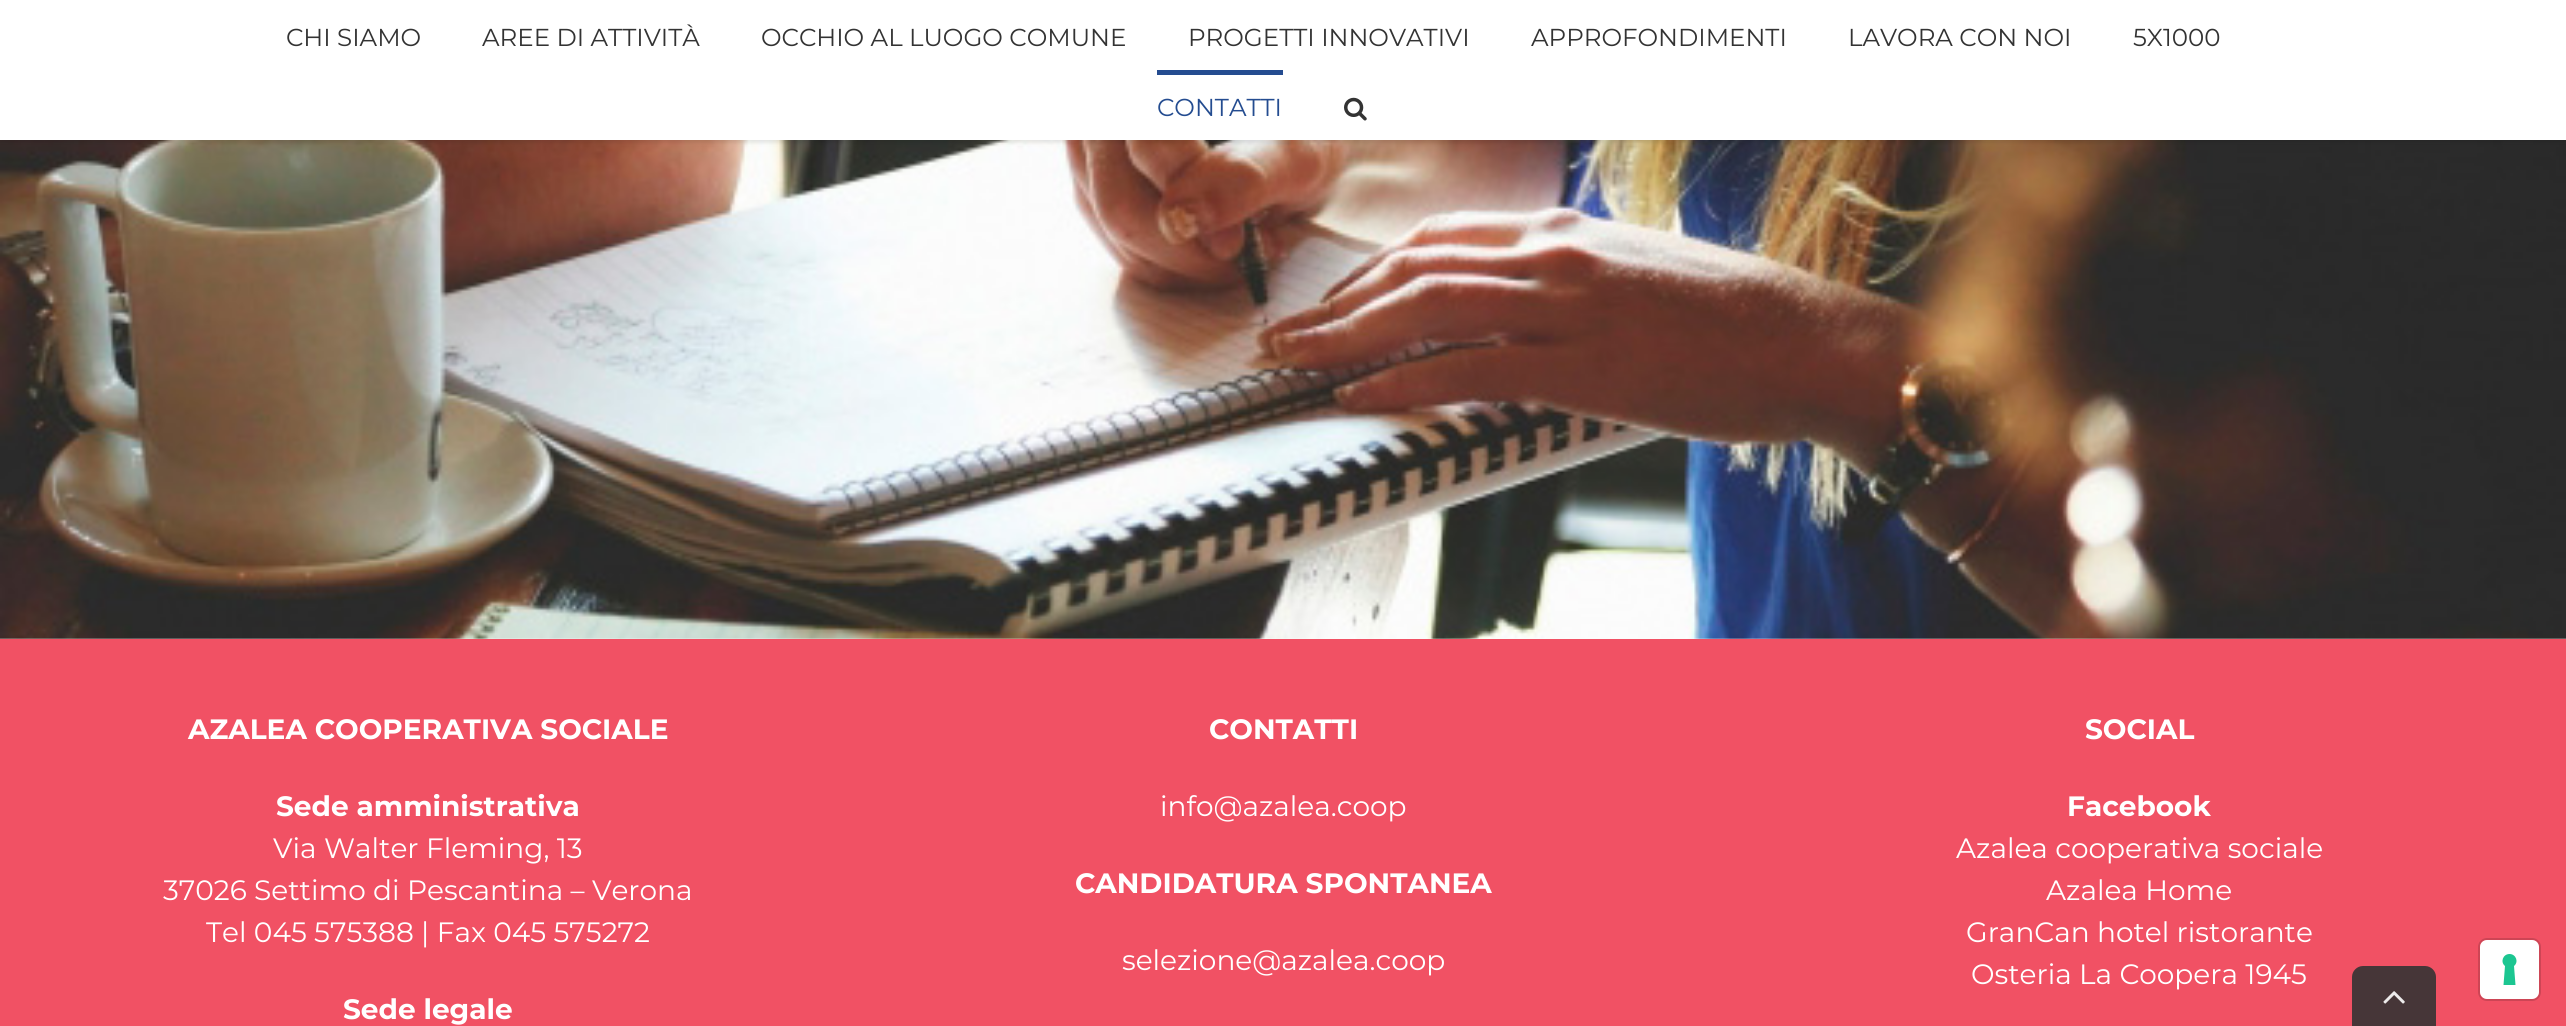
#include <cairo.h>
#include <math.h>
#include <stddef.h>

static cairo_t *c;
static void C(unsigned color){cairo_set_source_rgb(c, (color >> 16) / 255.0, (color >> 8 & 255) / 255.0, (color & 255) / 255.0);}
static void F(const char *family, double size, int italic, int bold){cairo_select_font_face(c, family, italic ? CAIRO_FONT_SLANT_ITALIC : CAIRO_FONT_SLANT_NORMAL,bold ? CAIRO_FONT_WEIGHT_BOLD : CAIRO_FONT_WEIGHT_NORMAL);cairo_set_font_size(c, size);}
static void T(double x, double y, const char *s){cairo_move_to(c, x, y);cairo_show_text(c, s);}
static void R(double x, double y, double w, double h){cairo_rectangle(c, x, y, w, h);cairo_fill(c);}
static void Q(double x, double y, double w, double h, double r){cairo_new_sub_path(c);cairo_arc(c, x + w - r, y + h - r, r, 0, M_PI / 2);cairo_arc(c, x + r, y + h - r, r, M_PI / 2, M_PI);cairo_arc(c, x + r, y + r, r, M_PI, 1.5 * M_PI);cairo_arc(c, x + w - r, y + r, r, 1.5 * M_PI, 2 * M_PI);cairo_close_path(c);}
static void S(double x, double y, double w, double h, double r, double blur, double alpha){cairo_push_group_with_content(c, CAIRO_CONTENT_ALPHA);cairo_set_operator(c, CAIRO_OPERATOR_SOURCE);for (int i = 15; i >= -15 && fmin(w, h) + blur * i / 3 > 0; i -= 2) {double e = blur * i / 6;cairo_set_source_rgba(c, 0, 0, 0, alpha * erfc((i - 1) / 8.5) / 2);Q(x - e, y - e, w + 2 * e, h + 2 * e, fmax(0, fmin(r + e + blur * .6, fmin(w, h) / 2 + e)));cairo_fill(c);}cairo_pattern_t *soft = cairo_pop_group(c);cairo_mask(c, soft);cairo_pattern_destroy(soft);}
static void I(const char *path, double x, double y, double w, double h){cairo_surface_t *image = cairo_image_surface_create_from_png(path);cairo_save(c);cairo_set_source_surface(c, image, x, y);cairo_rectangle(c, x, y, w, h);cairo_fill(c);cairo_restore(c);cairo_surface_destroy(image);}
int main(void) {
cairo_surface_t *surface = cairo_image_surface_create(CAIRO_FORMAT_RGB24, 2566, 1026);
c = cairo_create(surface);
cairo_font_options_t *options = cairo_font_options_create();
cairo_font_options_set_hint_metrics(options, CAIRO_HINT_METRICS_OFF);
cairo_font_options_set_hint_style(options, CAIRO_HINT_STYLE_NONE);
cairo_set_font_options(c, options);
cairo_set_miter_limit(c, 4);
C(0xffffff);
cairo_paint(c);
I("2.png",0,140,2566,499);
C(0x000000);
S(0,2,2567,140,0,2.5,.12);
C(0xffffff);
R(0,0,2566,140);
F("Montserrat",24.5,0,0);
C(0x333333);
T(286,46,"CHI SIAMO");
T(482,46,"AREE DI ATTIVITÀ");
T(761,46,"OCCHIO AL LUOGO COMUNE");
T(1188,46,"PROGETTI INNOVATIVI");
T(1531,46,"APPROFONDIMENTI");
T(1848,46,"LAVORA CON NOI");
T(2133,46,"5X1000");
C(0x244c90);
R(1157,70,126,5);
T(1157,116,"CONTATTI");
I("1.png",1344,97,23,24);
C(0xf15164);
R(0,639,2566,387);
F("Montserrat",28,0,1);
C(0xffffff);
T(188,739,"AZALEA COOPERATIVA SOCIALE");
T(276,816,"Sede amministrativa");
F("Montserrat",28,0,0);
T(273,858,"Via Walter Fleming, 13");
T(163,900,"37026 Settimo di Pescantina – Verona");
T(206,942,"Tel 045 575388 | Fax 045 575272");
F("Montserrat",28,0,1);
T(343,1019,"Sede legale");
T(1209,739,"CONTATTI");
F("Montserrat",28,0,0);
T(1160,816,"info@azalea.coop");
F("Montserrat",28,0,1);
T(1075,893,"CANDIDATURA SPONTANEA");
F("Montserrat",28,0,0);
T(1122,970,"selezione@azalea.coop");
F("Montserrat",28,0,1);
T(2085,739,"SOCIAL");
T(2067,816,"Facebook");
F("Montserrat",28,0,0);
T(1956,858,"Azalea cooperativa sociale");
T(2046,900,"Azalea Home");
T(1966,942,"GranCan hotel ristorante");
T(1971,984,"Osteria La Coopera 1945");
C(0x463638);
cairo_new_path(c);
cairo_move_to(c,2363,966);
cairo_line_to(c,2425,966);
cairo_curve_to(c,2431,966,2436,971,2436,977);
cairo_line_to(c,2436,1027);
cairo_line_to(c,2352,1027);
cairo_line_to(c,2352,977);
cairo_curve_to(c,2352,971,2357,966,2363,966);
cairo_close_path(c);
cairo_fill(c);
I("3.png",2383,991,22,13);
Q(2479,939,61,61,8);
C(0xcd4555);
cairo_stroke(c);
C(0xffffff);
Q(2480,940,59,59,7);
cairo_fill(c);
C(0x1cc691);
cairo_set_fill_rule(c,CAIRO_FILL_RULE_EVEN_ODD);
cairo_new_path(c);
cairo_move_to(c,2509.5,954);
cairo_curve_to(c,2516,954,2519,962,2514,966);
cairo_line_to(c,2515.5,985);
cairo_line_to(c,2503.5,985);
cairo_line_to(c,2505,966);
cairo_curve_to(c,2500,962,2503,954,2509.5,954);
cairo_close_path(c);
cairo_fill(c);
cairo_surface_write_to_png(surface, "o.png");
cairo_font_options_destroy(options);
cairo_destroy(c);
cairo_surface_destroy(surface);
return 0;
}
